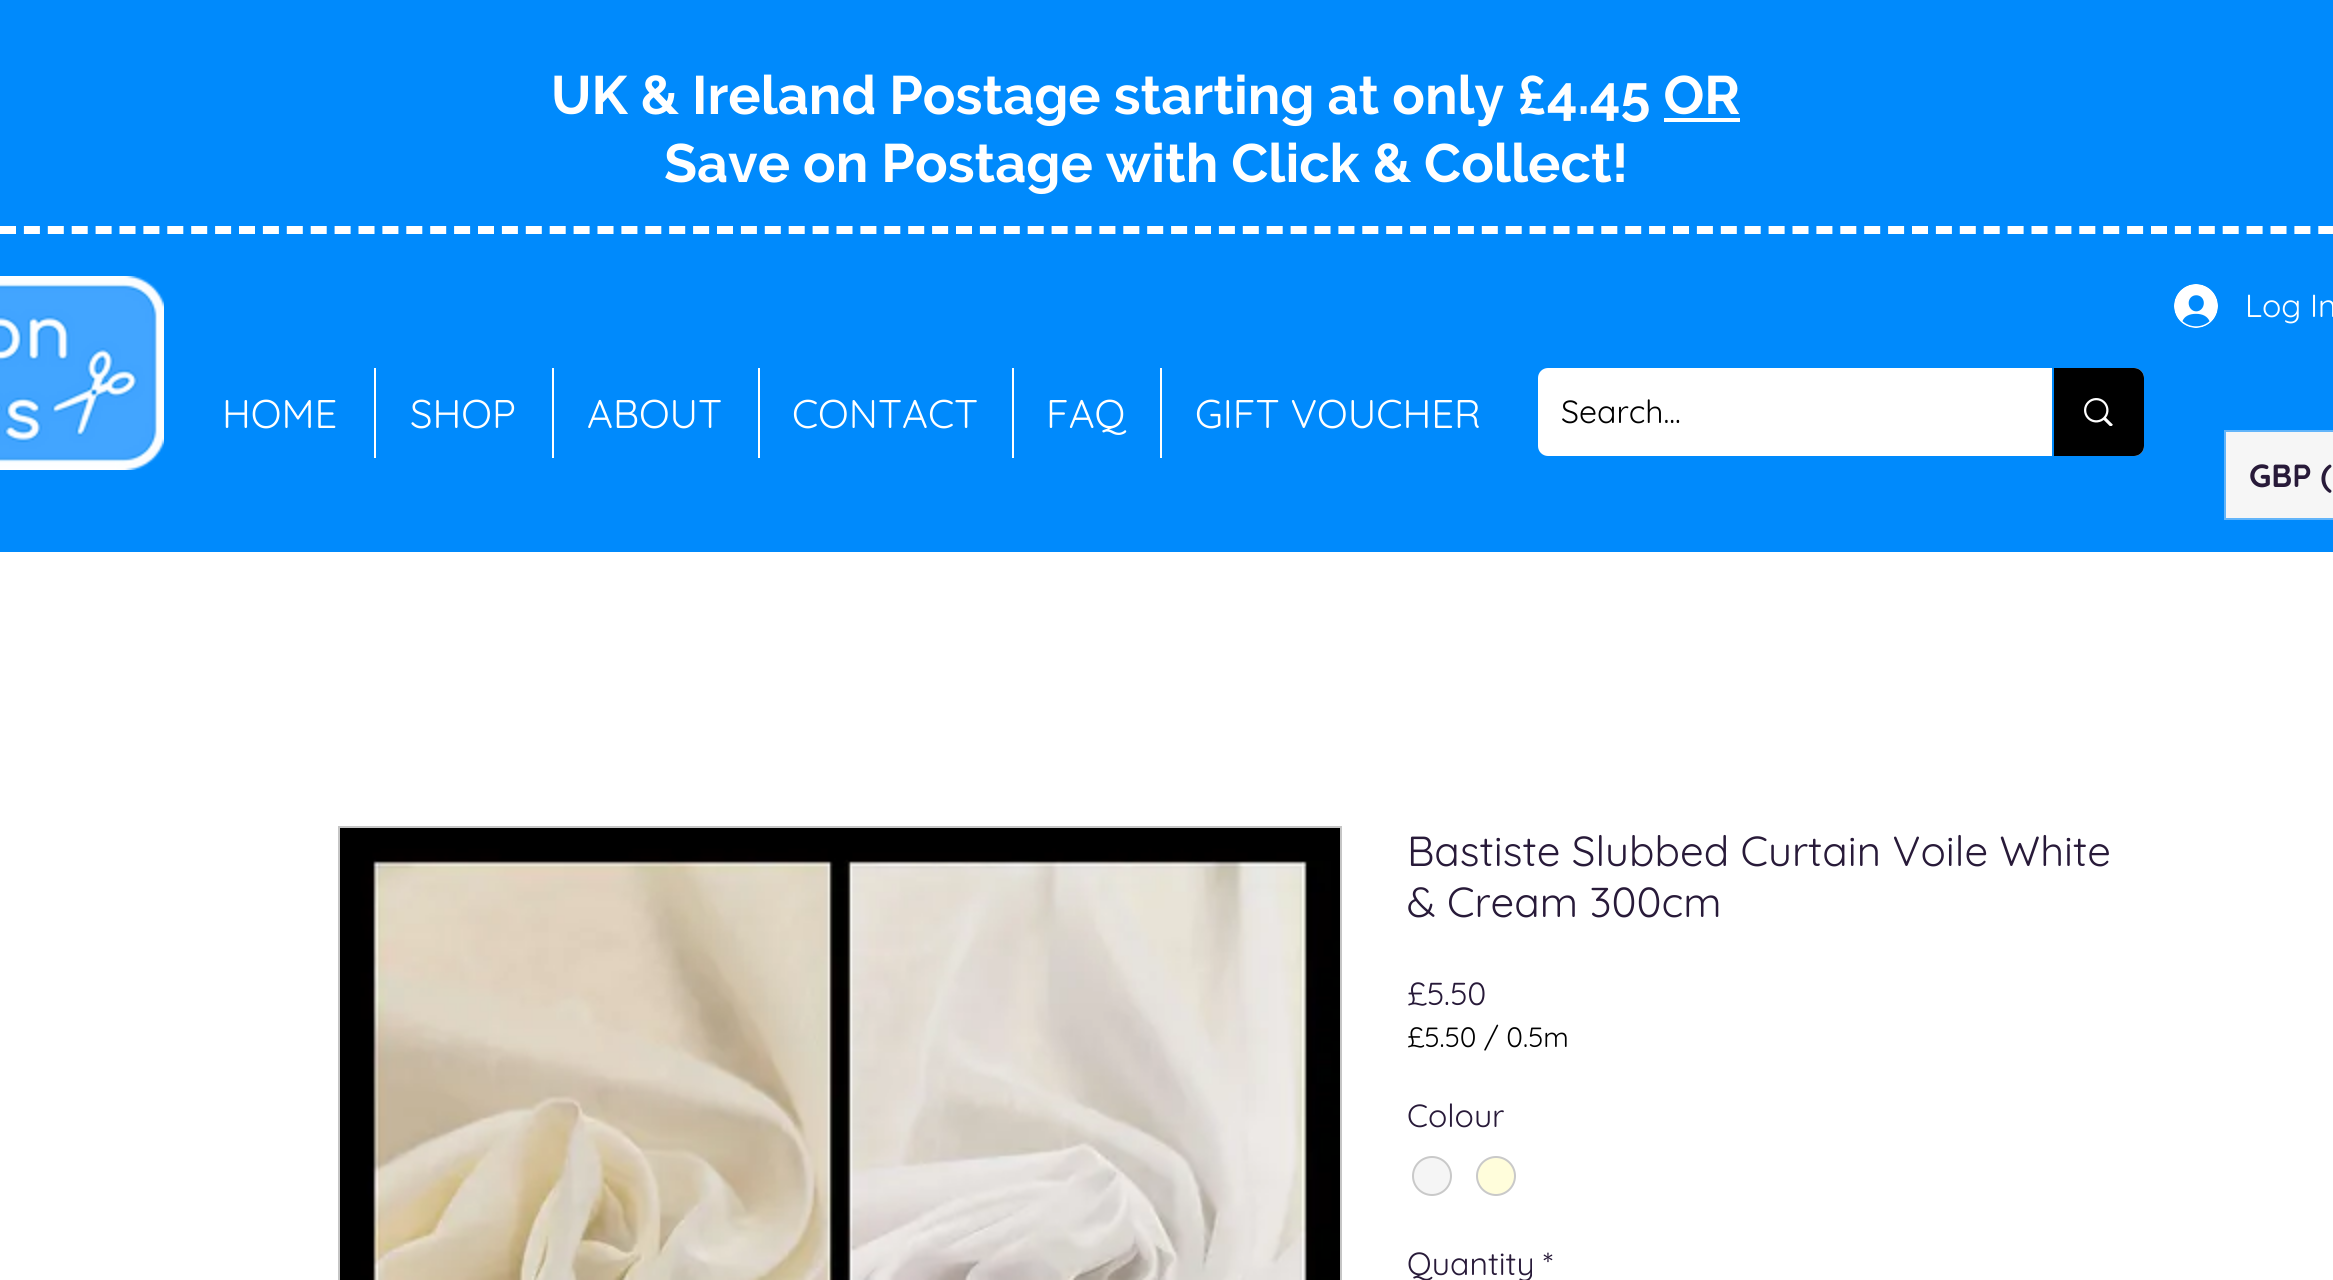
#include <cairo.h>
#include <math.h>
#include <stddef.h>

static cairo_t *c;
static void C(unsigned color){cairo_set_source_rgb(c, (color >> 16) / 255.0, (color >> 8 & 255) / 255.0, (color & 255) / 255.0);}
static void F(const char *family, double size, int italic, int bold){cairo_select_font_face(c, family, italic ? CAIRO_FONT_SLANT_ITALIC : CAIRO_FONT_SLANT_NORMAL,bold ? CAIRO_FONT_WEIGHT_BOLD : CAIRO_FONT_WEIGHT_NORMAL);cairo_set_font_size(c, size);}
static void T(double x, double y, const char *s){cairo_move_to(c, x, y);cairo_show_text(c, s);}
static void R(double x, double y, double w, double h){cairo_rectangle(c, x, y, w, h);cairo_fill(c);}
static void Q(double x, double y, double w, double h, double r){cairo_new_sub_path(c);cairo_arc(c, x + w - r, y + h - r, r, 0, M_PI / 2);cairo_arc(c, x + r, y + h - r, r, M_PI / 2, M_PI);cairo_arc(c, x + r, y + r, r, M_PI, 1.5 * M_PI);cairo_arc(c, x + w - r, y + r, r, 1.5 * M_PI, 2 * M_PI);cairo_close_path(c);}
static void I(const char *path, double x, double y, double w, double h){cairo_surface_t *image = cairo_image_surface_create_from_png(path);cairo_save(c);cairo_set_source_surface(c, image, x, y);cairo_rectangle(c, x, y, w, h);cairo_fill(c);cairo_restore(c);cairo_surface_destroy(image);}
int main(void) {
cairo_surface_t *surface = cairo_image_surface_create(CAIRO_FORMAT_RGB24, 2333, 1280);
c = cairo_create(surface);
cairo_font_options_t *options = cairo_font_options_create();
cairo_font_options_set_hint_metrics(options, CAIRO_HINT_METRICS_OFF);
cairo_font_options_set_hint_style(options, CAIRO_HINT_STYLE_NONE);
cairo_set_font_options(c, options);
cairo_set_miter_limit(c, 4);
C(0xffffff);
cairo_paint(c);
C(0x008afc);
R(0,0,2333,552);
F("Raleway",54,0,1);
C(0xffffff);
T(551,114,"UK & Ireland Postage starting at only £4.45 OR");
R(1664,118,76,4);
T(664,182,"Save on Postage with Click & Collect!");
cairo_new_path(c);
cairo_move_to(c,0,230);
cairo_line_to(c,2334,230);
cairo_set_line_width(c,8);
cairo_set_dash(c,(double[]){16,7.9},2,0);
cairo_stroke(c);
I("1.png",0,276,164,194);
I("2.png",2174,284,44,44);
F("Quicksand",32,0,0);
T(2245,317,"Log In");
F("Quicksand",40,0,0);
T(222,428,"HOME");
R(374,368,2,90);
T(410,428,"SHOP");
R(552,368,2,90);
T(587,428,"ABOUT");
R(758,368,2,90);
T(792,428,"CONTACT");
R(1012,368,2,90);
T(1046,428,"FAQ");
R(1160,368,2,90);
T(1195,428,"GIFT VOUCHER");
Q(1538,368,606,88,10);
cairo_fill(c);
F("Quicksand",32,0,0);
C(0x000000);
T(1561,423,"Search...");
cairo_new_path(c);
cairo_move_to(c,2052,368);
cairo_line_to(c,2134,368);
cairo_curve_to(c,2139.5,368,2144,372.5,2144,378);
cairo_line_to(c,2144,446);
cairo_curve_to(c,2144,451.5,2139.5,456,2134,456);
cairo_line_to(c,2052,456);
cairo_close_path(c);
cairo_fill(c);
C(0x008afc);
R(2052,368,2,88);
I("3.png",2084,398,29,28);
C(0xf6f6f6);
cairo_rectangle(c,2225,431,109,88);
cairo_fill_preserve(c);
C(0x62b5fa);
cairo_set_line_width(c,2);
cairo_set_dash(c,NULL,0,0);
cairo_stroke(c);
F("Quicksand",32,0,1);
C(0x281a39);
T(2249,487,"GBP (");
cairo_rectangle(c,339,827,1002,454);
C(0xc5c5c5);
cairo_stroke(c);
I("4.png",340,828,1000,452);
F("Quicksand",42,0,0);
C(0x281a39);
T(1407,866,"Bastiste Slubbed Curtain Voile White");
T(1407,917,"& Cream 300cm");
F("Quicksand",32,0,0);
T(1407,1005,"£5.50");
F("Quicksand",28,0,0);
C(0x000000);
T(1407,1047,"£5.50 / 0.5m");
F("Quicksand",32,0,0);
C(0x281a39);
T(1407,1127,"Colour");
C(0xf5f5f5);
cairo_new_path(c);
cairo_arc(c,1432,1176,19,0,2 * M_PI);
cairo_fill_preserve(c);
C(0xc9c9c9);
cairo_stroke(c);
C(0xfffddb);
cairo_arc(c,1496,1176,19,0,2 * M_PI);
cairo_fill_preserve(c);
C(0xc9c9c9);
cairo_stroke(c);
C(0x281a39);
T(1407,1275,"Quantity");
T(1543,1275,"*");
cairo_surface_write_to_png(surface, "o.png");
cairo_font_options_destroy(options);
cairo_destroy(c);
cairo_surface_destroy(surface);
return 0;
}
